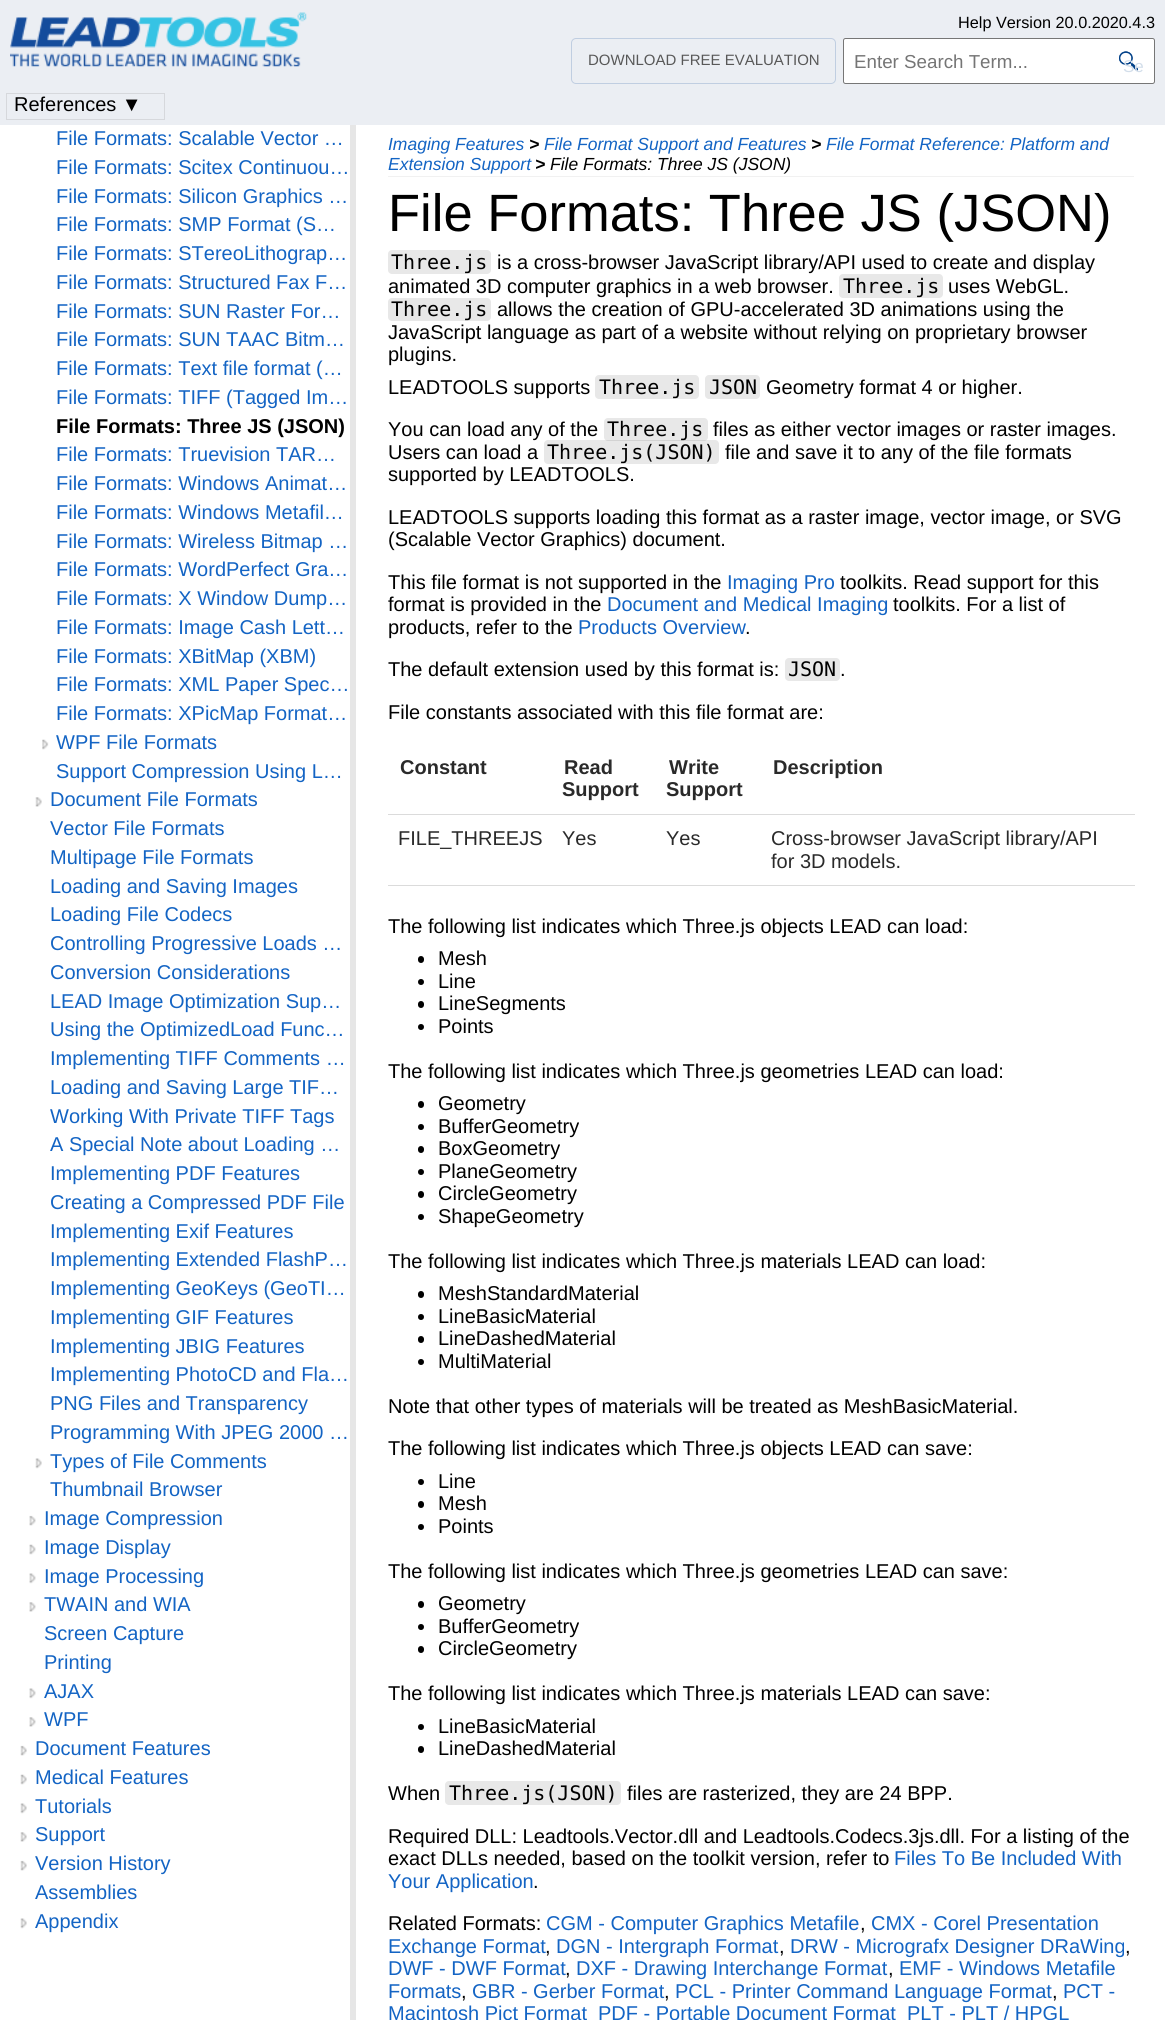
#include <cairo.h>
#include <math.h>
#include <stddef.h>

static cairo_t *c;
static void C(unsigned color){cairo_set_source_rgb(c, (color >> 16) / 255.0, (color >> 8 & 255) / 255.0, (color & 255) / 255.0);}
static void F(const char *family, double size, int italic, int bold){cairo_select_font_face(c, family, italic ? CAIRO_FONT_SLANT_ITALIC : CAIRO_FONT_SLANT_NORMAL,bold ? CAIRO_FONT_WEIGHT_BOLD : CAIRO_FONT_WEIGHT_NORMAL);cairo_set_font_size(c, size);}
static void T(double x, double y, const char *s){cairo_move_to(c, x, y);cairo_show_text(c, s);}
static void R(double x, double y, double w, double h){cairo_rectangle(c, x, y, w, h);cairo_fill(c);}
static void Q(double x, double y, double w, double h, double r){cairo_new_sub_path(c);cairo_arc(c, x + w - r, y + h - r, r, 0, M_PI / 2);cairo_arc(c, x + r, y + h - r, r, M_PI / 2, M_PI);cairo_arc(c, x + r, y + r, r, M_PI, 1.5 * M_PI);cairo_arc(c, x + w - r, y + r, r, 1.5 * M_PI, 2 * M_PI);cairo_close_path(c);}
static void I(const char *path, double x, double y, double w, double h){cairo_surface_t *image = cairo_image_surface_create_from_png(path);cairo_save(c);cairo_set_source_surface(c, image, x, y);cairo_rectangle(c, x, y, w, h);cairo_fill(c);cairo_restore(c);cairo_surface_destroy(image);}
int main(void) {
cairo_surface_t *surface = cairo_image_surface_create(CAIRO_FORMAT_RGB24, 1165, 2020);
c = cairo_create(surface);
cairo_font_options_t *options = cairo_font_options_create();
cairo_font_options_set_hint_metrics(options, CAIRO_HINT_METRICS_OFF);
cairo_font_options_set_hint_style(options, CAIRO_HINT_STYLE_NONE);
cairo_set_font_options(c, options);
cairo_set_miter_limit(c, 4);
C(0xffffff);
cairo_paint(c);
C(0xebeef3);
R(0,0,1165,125);
I("1.png",10,12,297,55);
F("Liberation Sans",16.25,0,0);
C(0x000000);
T(958,28,"Help Version 20.0.2020.4.3");
Q(571.5,38.5,264,45,4.5);
C(0xc0cee1);
cairo_set_line_width(c,1);
cairo_stroke(c);
F("Liberation Sans",15,0,0);
C(0x585858);
T(588,65,"DOWNLOAD FREE EVALUATION");
C(0xffffff);
Q(843.5,38.5,311,45,2);
cairo_fill_preserve(c);
C(0x767676);
cairo_stroke(c);
F("Liberation Sans",18.75,0,0);
C(0x757575);
T(854,68,"Enter Search Term...");
I("2.png",1119,51,19,20);
F("Liberation Sans",17,0,0);
C(0xd3deea);
T(1123,72,"Se");
cairo_rectangle(c,6.5,93.5,158,26);
C(0xd6d8dc);
cairo_stroke(c);
F("Liberation Sans",20,0,0);
C(0x000000);
T(14,111,"References ▼");
C(0xe6e6e6);
R(350,125,6,1895);
C(0x1364c4);
T(56,145,"File Formats: Scalable Vector …");
T(56,174,"File Formats: Scitex Continuou…");
T(56,203,"File Formats: Silicon Graphics …");
T(56,231,"File Formats: SMP Format (S…");
T(56,260,"File Formats: STereoLithograp…");
T(56,289,"File Formats: Structured Fax F…");
T(56,318,"File Formats: SUN Raster For…");
T(56,346,"File Formats: SUN TAAC Bitm…");
T(56,375,"File Formats: Text file format (…");
T(56,404,"File Formats: TIFF (Tagged Im…");
F("Liberation Sans",20,0,1);
C(0x000000);
T(56,433,"File Formats: Three JS (JSON)");
F("Liberation Sans",20,0,0);
C(0x1364c4);
T(56,461,"File Formats: Truevision TAR…");
T(56,490,"File Formats: Windows Animat…");
T(56,519,"File Formats: Windows Metafil…");
T(56,548,"File Formats: Wireless Bitmap …");
T(56,576,"File Formats: WordPerfect Gra…");
T(56,605,"File Formats: X Window Dump…");
T(56,634,"File Formats: Image Cash Lett…");
T(56,663,"File Formats: XBitMap (XBM)");
T(56,691,"File Formats: XML Paper Spec…");
T(56,720,"File Formats: XPicMap Format…");
I("3.png",42,739,7,11);
T(56,749,"WPF File Formats");
T(56,778,"Support Compression Using L…");
I("4.png",35,797,7,10);
T(50,806,"Document File Formats");
T(50,835,"Vector File Formats");
T(50,864,"Multipage File Formats");
T(50,893,"Loading and Saving Images");
T(50,921,"Loading File Codecs");
T(50,950,"Controlling Progressive Loads …");
T(50,979,"Conversion Considerations");
T(50,1008,"LEAD Image Optimization Sup…");
T(50,1036,"Using the OptimizedLoad Func…");
T(50,1065,"Implementing TIFF Comments …");
T(50,1094,"Loading and Saving Large TIF…");
T(50,1123,"Working With Private TIFF Tags");
T(50,1151,"A Special Note about Loading …");
T(50,1180,"Implementing PDF Features");
T(50,1209,"Creating a Compressed PDF File");
T(50,1238,"Implementing Exif Features");
T(50,1266,"Implementing Extended FlashP…");
T(50,1295,"Implementing GeoKeys (GeoTI…");
T(50,1324,"Implementing GIF Features");
T(50,1353,"Implementing JBIG Features");
T(50,1381,"Implementing PhotoCD and Fla…");
T(50,1410,"PNG Files and Transparency");
T(50,1439,"Programming With JPEG 2000 …");
I("5.png",35,1458,7,11);
T(50,1468,"Types of File Comments");
T(50,1496,"Thumbnail Browser");
I("6.png",29,1515,7,11);
T(44,1525,"Image Compression");
I("7.png",29,1544,7,11);
T(44,1554,"Image Display");
I("8.png",29,1573,7,11);
T(44,1583,"Image Processing");
I("9.png",29,1602,7,10);
T(44,1611,"TWAIN and WIA");
T(44,1640,"Screen Capture");
T(44,1669,"Printing");
I("8.png",29,1688,7,11);
T(44,1698,"AJAX");
I("9.png",29,1717,7,10);
T(44,1726,"WPF");
I("10.png",20,1745,7,11);
T(35,1755,"Document Features");
I("11.png",20,1774,7,11);
T(35,1784,"Medical Features");
I("12.png",20,1803,7,11);
T(35,1813,"Tutorials");
I("13.png",20,1832,7,10);
T(35,1841,"Support");
I("14.png",20,1860,7,11);
T(35,1870,"Version History");
T(35,1899,"Assemblies");
I("12.png",20,1918,7,11);
T(35,1928,"Appendix");
C(0xf1f1f1);
R(388,176,746,1);
F("Liberation Sans",17.5,1,0);
C(0x1364c4);
T(388,150,"Imaging Features");
F("Liberation Sans",17.5,1,1);
C(0x000000);
T(529,150,">");
F("Liberation Sans",17.5,1,0);
C(0x1364c4);
T(544,150,"File Format Support and Features");
F("Liberation Sans",17.5,1,1);
C(0x000000);
T(811,150,">");
F("Liberation Sans",17.5,1,0);
C(0x1364c4);
T(826,150,"File Format Reference: Platform and");
T(388,170,"Extension Support");
F("Liberation Sans",17.5,1,1);
C(0x000000);
T(535,170,">");
F("Liberation Sans",17.5,1,0);
T(550,170,"File Formats: Three JS (JSON)");
F("Liberation Sans",52.5,0,0);
T(388,231,"File Formats: Three JS (JSON)");
C(0xe8e8e8);
Q(388,250,103,24,4);
cairo_fill(c);
F("DejaVu Sans Mono",20,0,0);
C(0x000000);
T(391,269,"Three.js");
F("Liberation Sans",20,0,0);
T(497,269,"is a cross-browser JavaScript library/API used to create and display");
T(388,293,"animated 3D computer graphics in a web browser.");
C(0xe8e8e8);
Q(839,274,104,24,4);
cairo_fill(c);
F("DejaVu Sans Mono",20,0,0);
C(0x000000);
T(843,293,"Three.js");
F("Liberation Sans",20,0,0);
T(948,293,"uses WebGL.");
C(0xe8e8e8);
Q(388,298,103,23,4);
cairo_fill(c);
F("DejaVu Sans Mono",20,0,0);
C(0x000000);
T(391,316,"Three.js");
F("Liberation Sans",20,0,0);
T(497,316,"allows the creation of GPU-accelerated 3D animations using the");
T(388,339,"JavaScript language as part of a website without relying on proprietary browser");
T(388,361,"plugins.");
T(388,394,"LEADTOOLS supports");
C(0xe8e8e8);
Q(595,375,104,24,4);
cairo_fill(c);
F("DejaVu Sans Mono",20,0,0);
C(0x000000);
T(599,394,"Three.js");
C(0xe8e8e8);
Q(705,375,55,24,4);
cairo_fill(c);
C(0x000000);
T(709,394,"JSON");
F("Liberation Sans",20,0,0);
T(766,394,"Geometry format 4 or higher.");
T(388,436,"You can load any of the");
C(0xe8e8e8);
Q(604,418,104,23,4);
cairo_fill(c);
F("DejaVu Sans Mono",20,0,0);
C(0x000000);
T(607,436,"Three.js");
F("Liberation Sans",20,0,0);
T(713,436,"files as either vector images or raster images.");
T(388,459,"Users can load a");
cairo_set_source_rgba(c,0,0,0,0.09);
Q(544,440,175,24,4);
cairo_fill(c);
F("DejaVu Sans Mono",20,0,0);
C(0x000000);
T(547,459,"Three.js(JSON)");
F("Liberation Sans",20,0,0);
T(725,459,"file and save it to any of the file formats");
T(388,481,"supported by LEADTOOLS.");
T(388,524,"LEADTOOLS supports loading this format as a raster image, vector image, or SVG");
T(388,546,"(Scalable Vector Graphics) document.");
T(388,589,"This file format is not supported in the");
C(0x1364c4);
T(727,589,"Imaging Pro");
C(0x000000);
T(840,589,"toolkits. Read support for this");
T(388,611,"format is provided in the");
C(0x1364c4);
T(607,611,"Document and Medical Imaging");
C(0x000000);
T(893,611,"toolkits. For a list of");
T(388,634,"products, refer to the");
C(0x1364c4);
T(578,634,"Products Overview");
C(0x000000);
T(745,634,".");
T(388,676,"The default extension used by this format is:");
C(0xe8e8e8);
Q(785,658,55,23,4);
cairo_fill(c);
F("DejaVu Sans Mono",20,0,0);
C(0x000000);
T(788,676,"JSON");
F("Liberation Sans",20,0,0);
T(840,676,".");
T(388,719,"File constants associated with this file format are:");
F("Liberation Sans",20,0,1);
C(0x2a2a2a);
T(400,774,"Constant");
T(564,774,"Read");
T(562,796,"Support");
T(669,774,"Write");
T(666,796,"Support");
C(0xdbdbdb);
R(388,814,747,1);
C(0x2a2a2a);
T(773,774,"Description");
F("Liberation Sans",20,0,0);
T(398,845,"FILE_THREEJS");
T(562,845,"Yes");
T(666,845,"Yes");
C(0xdbdbdb);
R(388,885,747,1);
C(0x2a2a2a);
T(771,845,"Cross-browser JavaScript library/API");
T(771,868,"for 3D models.");
C(0x000000);
T(388,933,"The following list indicates which Three.js objects LEAD can load:");
Q(418,956,6,7,3);
cairo_fill(c);
T(438,965,"Mesh");
cairo_new_path(c);
cairo_arc(c,421,982,3,0,2 * M_PI);
cairo_fill(c);
T(438,988,"Line");
Q(418,1001,6,7,3);
cairo_fill(c);
T(438,1010,"LineSegments");
cairo_new_path(c);
cairo_arc(c,421,1027,3,0,2 * M_PI);
cairo_fill(c);
T(438,1033,"Points");
T(388,1078,"The following list indicates which Three.js geometries LEAD can load:");
Q(418,1101,6,7,3);
cairo_fill(c);
T(438,1110,"Geometry");
cairo_new_path(c);
cairo_arc(c,421,1127,3,0,2 * M_PI);
cairo_fill(c);
T(438,1133,"BufferGeometry");
Q(418,1146,6,7,3);
cairo_fill(c);
T(438,1155,"BoxGeometry");
cairo_new_path(c);
cairo_arc(c,421,1172,3,0,2 * M_PI);
cairo_fill(c);
T(438,1178,"PlaneGeometry");
Q(418,1191,6,7,3);
cairo_fill(c);
T(438,1200,"CircleGeometry");
cairo_new_path(c);
cairo_arc(c,421,1217,3,0,2 * M_PI);
cairo_fill(c);
T(438,1223,"ShapeGeometry");
T(388,1268,"The following list indicates which Three.js materials LEAD can load:");
Q(418,1291,6,7,3);
cairo_fill(c);
T(438,1300,"MeshStandardMaterial");
cairo_new_path(c);
cairo_arc(c,421,1317,3,0,2 * M_PI);
cairo_fill(c);
T(438,1323,"LineBasicMaterial");
Q(418,1336,6,7,3);
cairo_fill(c);
T(438,1345,"LineDashedMaterial");
cairo_new_path(c);
cairo_arc(c,421,1362,3,0,2 * M_PI);
cairo_fill(c);
T(438,1368,"MultiMaterial");
T(388,1413,"Note that other types of materials will be treated as MeshBasicMaterial.");
T(388,1455,"The following list indicates which Three.js objects LEAD can save:");
cairo_new_path(c);
cairo_arc(c,421,1482,3,0,2 * M_PI);
cairo_fill(c);
T(438,1488,"Line");
Q(418,1501,6,7,3);
cairo_fill(c);
T(438,1510,"Mesh");
cairo_new_path(c);
cairo_arc(c,421,1527,3,0,2 * M_PI);
cairo_fill(c);
T(438,1533,"Points");
T(388,1578,"The following list indicates which Three.js geometries LEAD can save:");
Q(418,1601,6,7,3);
cairo_fill(c);
T(438,1610,"Geometry");
cairo_new_path(c);
cairo_arc(c,421,1627,3,0,2 * M_PI);
cairo_fill(c);
T(438,1633,"BufferGeometry");
Q(418,1646,6,7,3);
cairo_fill(c);
T(438,1655,"CircleGeometry");
T(388,1700,"The following list indicates which Three.js materials LEAD can save:");
cairo_new_path(c);
cairo_arc(c,421,1727,3,0,2 * M_PI);
cairo_fill(c);
T(438,1733,"LineBasicMaterial");
Q(418,1746,6,7,3);
cairo_fill(c);
T(438,1755,"LineDashedMaterial");
T(388,1800,"When");
C(0xe8e8e8);
Q(445,1781,176,24,4);
cairo_fill(c);
F("DejaVu Sans Mono",20,0,0);
C(0x000000);
T(449,1800,"Three.js(JSON)");
F("Liberation Sans",20,0,0);
T(627,1800,"files are rasterized, they are 24 BPP.");
T(388,1843,"Required DLL: Leadtools.Vector.dll and Leadtools.Codecs.3js.dll. For a listing of the");
T(388,1865,"exact DLLs needed, based on the toolkit version, refer to");
C(0x1364c4);
T(894,1865,"Files To Be Included With");
T(388,1888,"Your Application");
C(0x000000);
T(533,1888,".");
T(388,1930,"Related Formats:");
C(0x1364c4);
T(546,1930,"CGM - Computer Graphics Metafile");
C(0x000000);
T(860,1930,",");
C(0x1364c4);
T(871,1930,"CMX - Corel Presentation");
T(388,1953,"Exchange Format");
C(0x000000);
T(545,1953,",");
C(0x1364c4);
T(556,1953,"DGN - Intergraph Format");
C(0x000000);
T(779,1953,",");
C(0x1364c4);
T(790,1953,"DRW - Micrografx Designer DRaWing");
C(0x000000);
T(1125,1953,",");
C(0x1364c4);
T(388,1975,"DWF - DWF Format");
C(0x000000);
T(565,1975,",");
C(0x1364c4);
T(576,1975,"DXF - Drawing Interchange Format");
C(0x000000);
T(888,1975,",");
C(0x1364c4);
T(899,1975,"EMF - Windows Metafile");
T(388,1998,"Formats");
C(0x000000);
T(461,1998,",");
C(0x1364c4);
T(472,1998,"GBR - Gerber Format");
C(0x000000);
T(664,1998,",");
C(0x1364c4);
T(675,1998,"PCL - Printer Command Language Format");
C(0x000000);
T(1052,1998,",");
C(0x1364c4);
T(1063,1998,"PCT -");
T(388,2020,"Macintosh Pict Format");
T(598,2020,"PDF - Portable Document Format");
T(907,2020,"PLT - PLT / HPGL");
cairo_surface_write_to_png(surface, "o.png");
cairo_font_options_destroy(options);
cairo_destroy(c);
cairo_surface_destroy(surface);
return 0;
}
